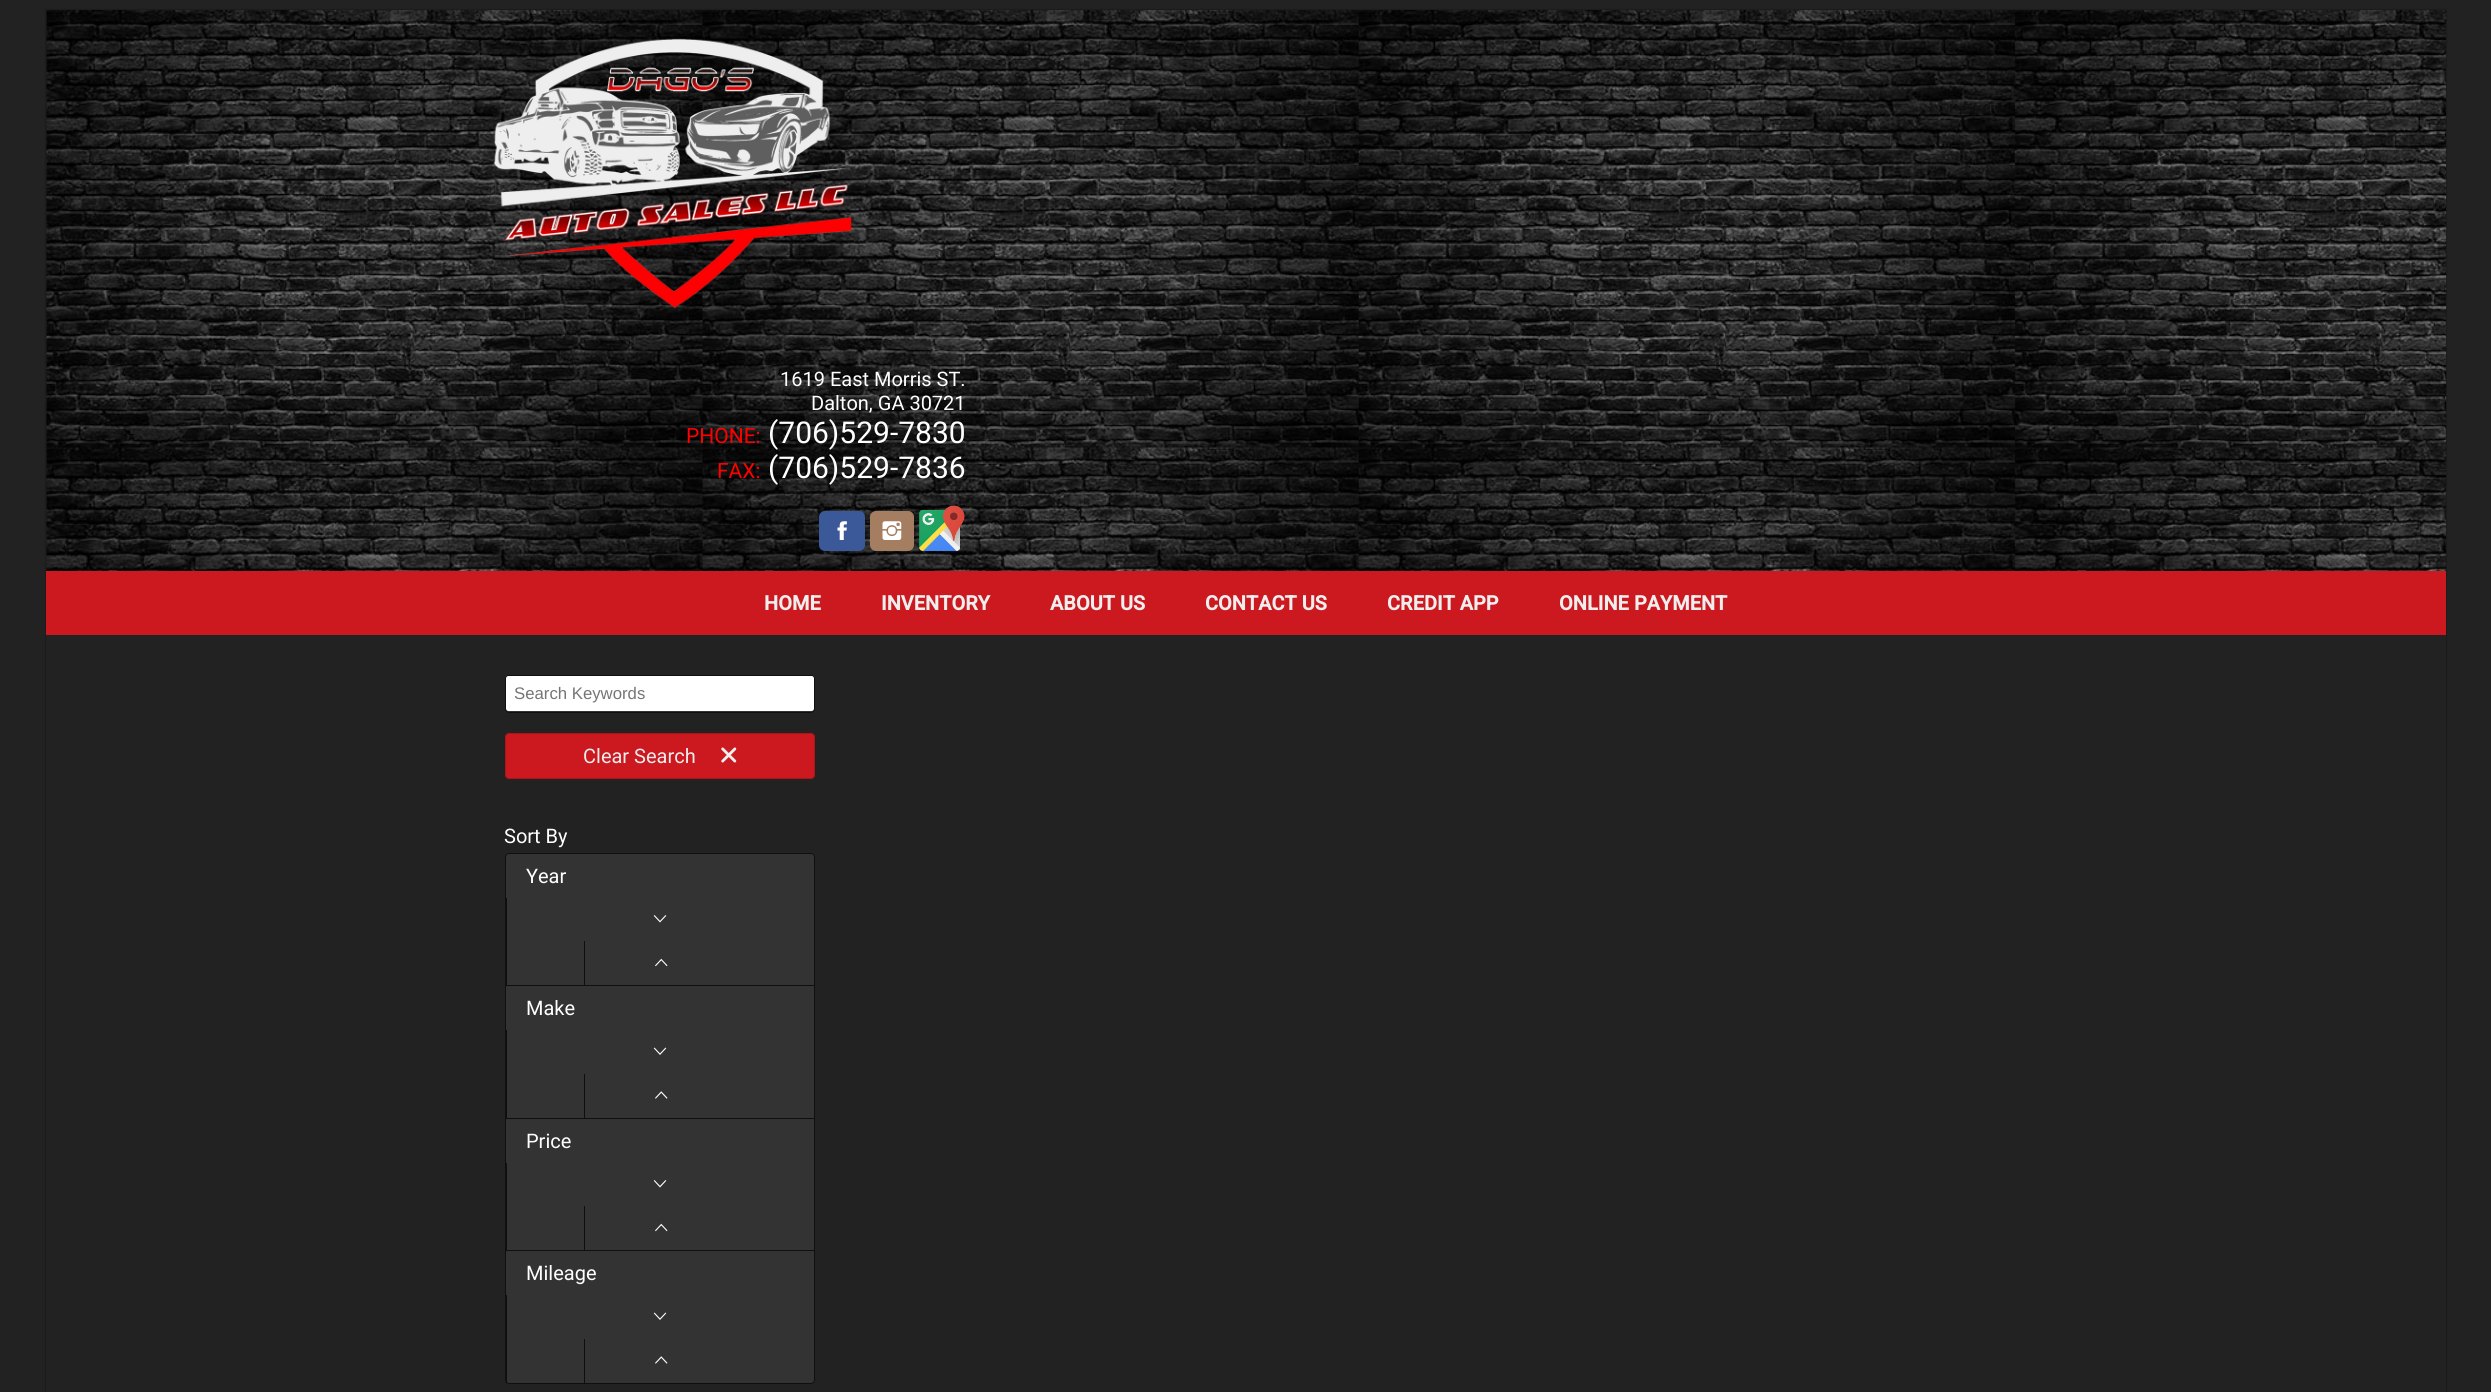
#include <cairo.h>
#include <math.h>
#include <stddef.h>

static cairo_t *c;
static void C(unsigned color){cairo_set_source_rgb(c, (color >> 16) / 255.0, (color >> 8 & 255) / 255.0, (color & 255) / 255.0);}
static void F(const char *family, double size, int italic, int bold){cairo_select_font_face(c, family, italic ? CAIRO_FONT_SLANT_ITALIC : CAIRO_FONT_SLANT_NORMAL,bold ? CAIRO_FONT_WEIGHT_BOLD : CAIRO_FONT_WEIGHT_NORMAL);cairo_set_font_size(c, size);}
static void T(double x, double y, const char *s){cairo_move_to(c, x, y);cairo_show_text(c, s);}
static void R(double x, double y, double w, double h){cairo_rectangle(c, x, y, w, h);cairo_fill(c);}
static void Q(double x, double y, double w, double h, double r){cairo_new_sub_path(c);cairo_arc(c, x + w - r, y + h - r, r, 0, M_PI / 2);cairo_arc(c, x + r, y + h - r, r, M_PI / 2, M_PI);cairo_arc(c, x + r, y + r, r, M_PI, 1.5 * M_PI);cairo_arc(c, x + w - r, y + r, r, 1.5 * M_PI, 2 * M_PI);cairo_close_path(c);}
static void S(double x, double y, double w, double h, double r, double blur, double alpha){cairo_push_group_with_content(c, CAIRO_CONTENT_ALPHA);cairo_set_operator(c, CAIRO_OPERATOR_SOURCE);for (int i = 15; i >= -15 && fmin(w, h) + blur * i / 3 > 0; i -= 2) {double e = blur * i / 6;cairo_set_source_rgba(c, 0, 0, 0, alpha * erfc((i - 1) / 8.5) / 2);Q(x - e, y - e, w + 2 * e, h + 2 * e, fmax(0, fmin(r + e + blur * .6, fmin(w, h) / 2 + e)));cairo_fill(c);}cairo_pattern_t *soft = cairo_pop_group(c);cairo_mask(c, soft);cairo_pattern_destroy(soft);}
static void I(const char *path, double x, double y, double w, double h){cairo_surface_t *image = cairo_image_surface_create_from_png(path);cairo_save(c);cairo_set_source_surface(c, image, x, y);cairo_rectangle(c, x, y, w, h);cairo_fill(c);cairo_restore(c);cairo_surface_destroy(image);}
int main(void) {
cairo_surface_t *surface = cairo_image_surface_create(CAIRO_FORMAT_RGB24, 2491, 1392);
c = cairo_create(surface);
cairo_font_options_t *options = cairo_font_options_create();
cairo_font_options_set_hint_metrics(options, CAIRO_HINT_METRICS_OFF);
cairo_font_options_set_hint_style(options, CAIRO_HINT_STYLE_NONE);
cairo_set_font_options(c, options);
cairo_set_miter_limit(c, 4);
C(0x222222);
cairo_paint(c);
C(0x000000);
S(46,10,2400,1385,0,1,.5);
C(0x222222);
R(46,10,2400,1382);
I("1.png",46,10,2401,561);
I("2.png",493,38,359,271);
F("Roboto",20,0,0);
C(0xffffff);
T(780,386,"1619 East Morris ST.");
T(811,410,"Dalton, GA 30721");
F("Roboto",21,0,0);
C(0xff0000);
T(686,443,"PHONE:");
F("Roboto",30,0,0);
C(0xffffff);
T(768,443,"(706)529-7830");
F("Roboto",21,0,0);
C(0xff0000);
T(717,478,"FAX:");
F("Roboto",30,0,0);
C(0xffffff);
T(768,478,"(706)529-7836");
C(0x3b5998);
Q(819,511,46,40,6);
cairo_fill(c);
I("3.png",837,521,10,19);
C(0xa57d60);
Q(870,511,44,40,6);
cairo_fill(c);
I("4.png",882,521,20,19);
I("5.png",919,505,46,46);
C(0xcc181f);
R(46,571,2400,64);
F("Roboto",20,0,1);
C(0xeeeeee);
T(764,610,"HOME");
T(881,610,"INVENTORY");
T(1050,610,"ABOUT US");
T(1205,610,"CONTACT US");
T(1387,610,"CREDIT APP");
T(1559,610,"ONLINE PAYMENT");
C(0x333333);
Q(505,675,310,38,4);
cairo_fill(c);
Q(505.5,675.5,309,37,3.5);
cairo_set_source_rgba(c,0,0,0,0.7);
cairo_set_line_width(c,1);
cairo_stroke(c);
C(0xffffff);
Q(506,676,308,35,2.5);
cairo_fill(c);
F("Liberation Sans",16.75,0,0);
C(0x757575);
T(514,699,"Search Keywords");
C(0xcc181f);
Q(505.5,733.5,309,45,3.5);
cairo_fill_preserve(c);
C(0xad141a);
cairo_stroke(c);
F("Roboto",20,0,0);
C(0xeeeeee);
T(583,763,"Clear Search");
I("6.png",721,747,16,16);
C(0xffffff);
T(504,843,"Sort By");
C(0x333333);
Q(505,853,310,531,4);
cairo_fill(c);
Q(505.5,853.5,309,530,3.5);
cairo_set_source_rgba(c,0,0,0,0.7);
cairo_stroke(c);
C(0x0f0f0f);
R(506,985,308,1);
C(0xffffff);
T(526,883,"Year");
C(0x0f0f0f);
R(506,898,1,87);
I("7.png",653,915,14,8);
R(584,941,1,44);
I("8.png",655,958,13,9);
R(506,1118,308,1);
C(0xffffff);
T(526,1015,"Make");
C(0x0f0f0f);
R(506,1030,1,88);
I("9.png",653,1047,14,8);
R(584,1074,1,44);
I("10.png",655,1091,13,8);
R(506,1250,308,1);
C(0xffffff);
T(526,1148,"Price");
C(0x0f0f0f);
R(506,1163,1,87);
I("7.png",653,1180,14,8);
R(584,1206,1,44);
I("8.png",655,1223,13,9);
C(0xffffff);
T(526,1280,"Mileage");
cairo_set_source_rgba(c,0,0,0,0.7);
R(506,1295,1,88);
I("9.png",653,1312,14,8);
C(0x0f0f0f);
R(584,1339,1,44);
I("10.png",655,1356,13,8);
cairo_surface_write_to_png(surface, "o.png");
cairo_font_options_destroy(options);
cairo_destroy(c);
cairo_surface_destroy(surface);
return 0;
}
